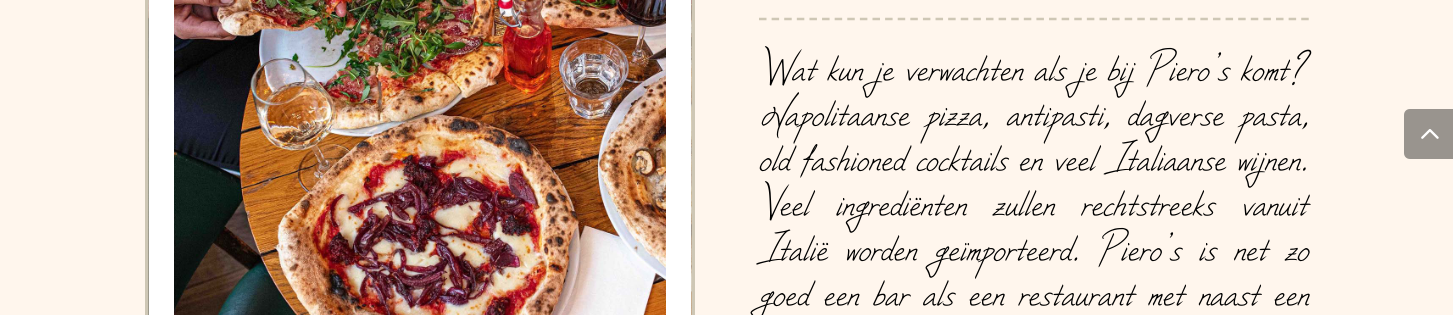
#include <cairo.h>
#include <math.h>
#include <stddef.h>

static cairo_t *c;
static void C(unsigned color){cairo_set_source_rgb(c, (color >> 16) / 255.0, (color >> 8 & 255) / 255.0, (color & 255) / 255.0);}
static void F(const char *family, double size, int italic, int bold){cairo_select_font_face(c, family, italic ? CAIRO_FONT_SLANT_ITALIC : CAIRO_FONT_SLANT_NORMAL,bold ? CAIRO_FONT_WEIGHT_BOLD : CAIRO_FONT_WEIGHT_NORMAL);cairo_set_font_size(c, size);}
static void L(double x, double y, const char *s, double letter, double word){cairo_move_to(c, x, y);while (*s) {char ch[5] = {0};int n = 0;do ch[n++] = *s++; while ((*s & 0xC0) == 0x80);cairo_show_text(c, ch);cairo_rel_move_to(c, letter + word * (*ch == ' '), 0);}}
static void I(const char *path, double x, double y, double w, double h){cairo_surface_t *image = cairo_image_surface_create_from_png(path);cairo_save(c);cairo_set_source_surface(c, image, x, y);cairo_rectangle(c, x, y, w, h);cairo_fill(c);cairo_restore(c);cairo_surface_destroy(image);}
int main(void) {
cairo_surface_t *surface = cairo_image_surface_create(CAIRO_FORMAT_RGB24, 1453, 315);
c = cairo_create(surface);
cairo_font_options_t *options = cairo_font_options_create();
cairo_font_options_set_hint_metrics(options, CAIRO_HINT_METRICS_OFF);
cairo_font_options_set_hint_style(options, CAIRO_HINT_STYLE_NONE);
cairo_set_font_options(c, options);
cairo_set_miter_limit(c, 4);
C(0xfff6ed);
cairo_paint(c);
cairo_rectangle(c,147,-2,546,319);
C(0xcec7b5);
cairo_set_line_width(c,4);
cairo_stroke(c);
I("1.png",148,0,544,315);
cairo_rectangle(c,161.5,-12.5,517,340);
C(0xffffff);
cairo_set_line_width(c,25);
cairo_stroke(c);
cairo_new_path(c);
cairo_move_to(c,759,19);
cairo_line_to(c,1309,19);
C(0xcec7b5);
cairo_set_line_width(c,2.5);
cairo_set_dash(c,(double[]){7.5,5.11},2,0);
cairo_stroke(c);
F("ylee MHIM",45,1,0);
C(0x000000);
L(759,80,"Wat kun je verwachten als je bij Piero’s komt?",0,2.25);
L(759,125,"Napolitaanse pizza, antipasti, dagverse pasta,",0,7.5);
L(759,170,"old fashioned cocktails en veel Italiaanse wijnen.",0,2.25);
L(759,215,"Veel ingrediënten zullen rechtstreeks vanuit",0,17.5);
L(759,260,"Italië worden geïmporteerd. Piero’s is net zo",0,8.5);
L(759,305,"goed een bar als een restaurant met naast een",0,5.25);
C(0x99948e);
cairo_new_path(c);
cairo_move_to(c,1410,109);
cairo_line_to(c,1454,109);
cairo_line_to(c,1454,159);
cairo_line_to(c,1410,159);
cairo_curve_to(c,1406.5,159,1404,156.5,1404,153);
cairo_line_to(c,1404,115);
cairo_curve_to(c,1404,111.5,1406.5,109,1410,109);
cairo_close_path(c);
cairo_fill(c);
I("2.png",1421,129,18,10);
cairo_surface_write_to_png(surface, "o.png");
cairo_font_options_destroy(options);
cairo_destroy(c);
cairo_surface_destroy(surface);
return 0;
}
